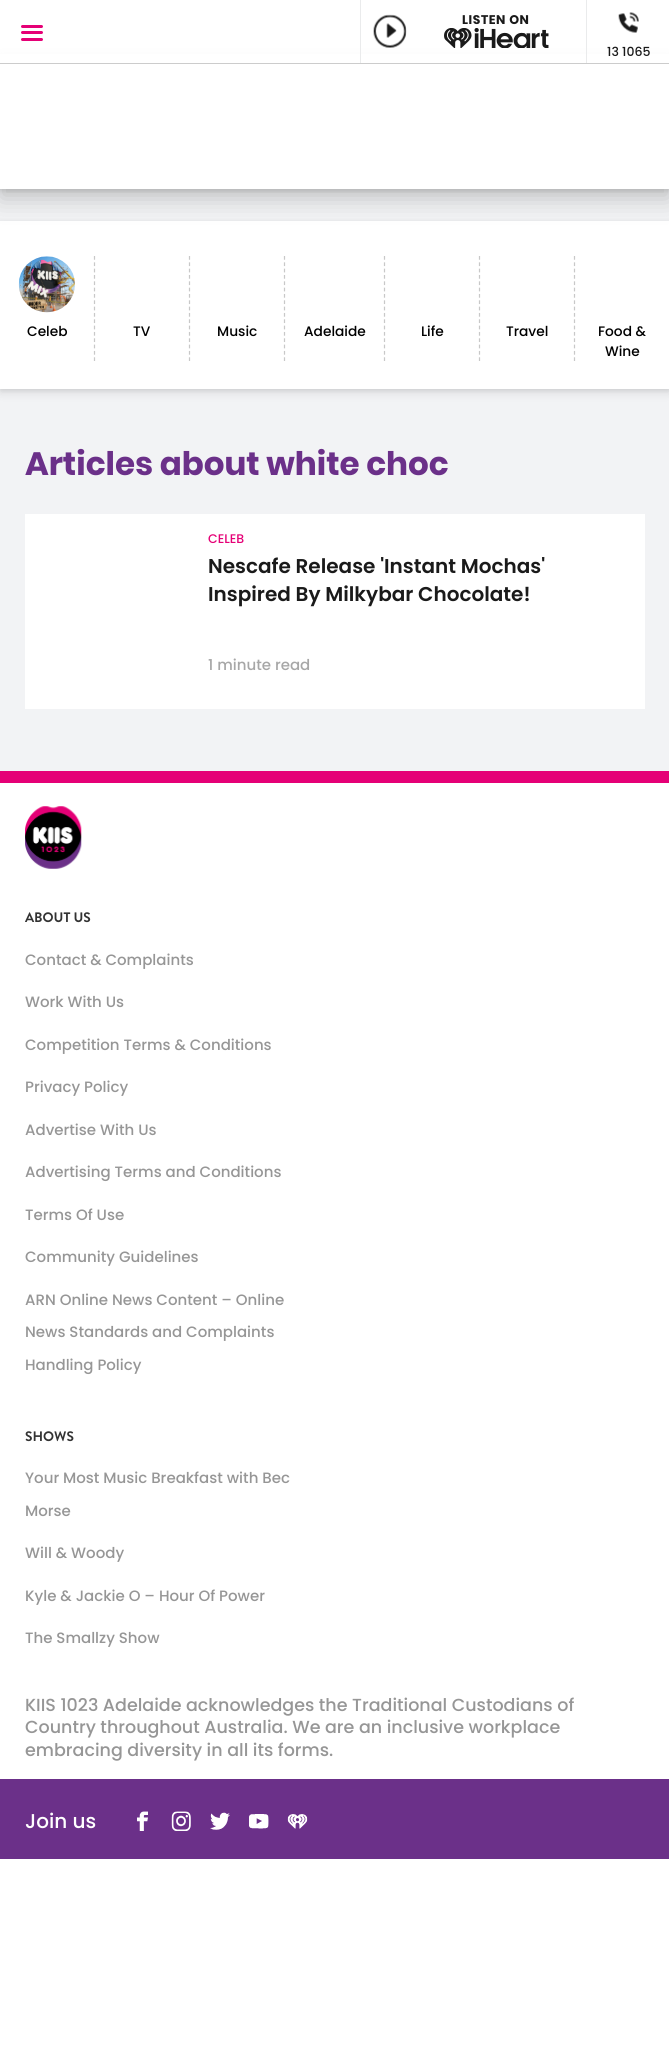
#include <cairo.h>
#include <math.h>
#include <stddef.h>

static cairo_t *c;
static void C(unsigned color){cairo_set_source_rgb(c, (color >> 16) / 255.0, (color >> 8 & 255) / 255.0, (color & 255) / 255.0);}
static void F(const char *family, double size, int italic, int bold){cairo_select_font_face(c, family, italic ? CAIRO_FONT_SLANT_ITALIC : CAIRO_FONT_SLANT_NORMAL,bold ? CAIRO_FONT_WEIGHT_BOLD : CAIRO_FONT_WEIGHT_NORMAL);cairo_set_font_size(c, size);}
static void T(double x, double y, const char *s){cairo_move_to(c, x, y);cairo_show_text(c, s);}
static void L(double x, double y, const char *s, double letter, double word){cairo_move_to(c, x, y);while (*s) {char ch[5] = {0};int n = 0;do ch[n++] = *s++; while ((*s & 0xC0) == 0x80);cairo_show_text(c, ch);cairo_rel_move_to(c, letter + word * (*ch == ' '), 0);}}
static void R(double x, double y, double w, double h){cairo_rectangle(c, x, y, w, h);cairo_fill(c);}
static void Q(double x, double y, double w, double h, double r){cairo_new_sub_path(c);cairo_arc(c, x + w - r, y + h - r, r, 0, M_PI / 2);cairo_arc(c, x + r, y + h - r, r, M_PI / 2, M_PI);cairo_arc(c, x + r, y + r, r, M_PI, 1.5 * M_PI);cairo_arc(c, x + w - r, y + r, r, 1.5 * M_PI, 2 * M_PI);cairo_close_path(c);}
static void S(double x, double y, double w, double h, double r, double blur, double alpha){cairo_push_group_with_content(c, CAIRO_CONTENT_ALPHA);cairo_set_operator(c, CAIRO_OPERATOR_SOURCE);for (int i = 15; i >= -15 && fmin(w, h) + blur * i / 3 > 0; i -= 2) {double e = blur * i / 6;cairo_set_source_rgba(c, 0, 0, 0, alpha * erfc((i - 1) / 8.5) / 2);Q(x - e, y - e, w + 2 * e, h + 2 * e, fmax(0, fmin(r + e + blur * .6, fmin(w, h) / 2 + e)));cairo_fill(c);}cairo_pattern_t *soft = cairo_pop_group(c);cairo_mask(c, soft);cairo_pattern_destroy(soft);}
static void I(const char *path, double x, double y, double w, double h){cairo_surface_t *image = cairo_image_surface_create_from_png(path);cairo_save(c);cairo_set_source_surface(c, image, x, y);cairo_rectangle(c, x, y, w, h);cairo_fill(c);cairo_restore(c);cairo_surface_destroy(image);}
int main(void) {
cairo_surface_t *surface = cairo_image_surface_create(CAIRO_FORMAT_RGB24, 669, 2061);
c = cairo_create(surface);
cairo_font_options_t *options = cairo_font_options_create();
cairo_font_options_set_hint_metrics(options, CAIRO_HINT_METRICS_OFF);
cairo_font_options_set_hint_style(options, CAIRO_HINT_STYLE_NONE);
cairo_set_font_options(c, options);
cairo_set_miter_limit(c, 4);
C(0xffffff);
cairo_paint(c);
C(0xe50076);
Q(21,31,22,3,1.5);
cairo_fill(c);
Q(21,25,22,3,1.5);
cairo_fill(c);
C(0xf2f3f5);
R(0,189,669,582);
C(0x000000);
S(0,223,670,167,0,3,.12);
S(0,226,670,168,0,5,.07);
C(0xffffff);
R(0,221,669,168);
cairo_save(c);
cairo_set_fill_rule(c,CAIRO_FILL_RULE_EVEN_ODD);
cairo_new_path(c);
cairo_move_to(c,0,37);
cairo_line_to(c,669,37);
cairo_line_to(c,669,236);
cairo_line_to(c,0,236);
cairo_close_path(c);
cairo_move_to(c,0,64);
cairo_line_to(c,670,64);
cairo_line_to(c,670,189);
cairo_line_to(c,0,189);
cairo_close_path(c);
cairo_clip(c);
C(0x000000);
S(0,74,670,125,0,12,.2);
cairo_restore(c);
C(0xe50076);
Q(21,38,22,3,1.5);
cairo_fill(c);
cairo_save(c);
cairo_set_fill_rule(c,CAIRO_FILL_RULE_EVEN_ODD);
cairo_new_path(c);
cairo_move_to(c,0,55);
cairo_line_to(c,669,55);
cairo_line_to(c,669,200);
cairo_line_to(c,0,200);
cairo_close_path(c);
cairo_move_to(c,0,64);
cairo_line_to(c,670,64);
cairo_line_to(c,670,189);
cairo_line_to(c,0,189);
cairo_close_path(c);
cairo_clip(c);
C(0x000000);
S(0,65,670,125,0,3,.16);
cairo_restore(c);
C(0xffffff);
R(0,54,669,9);
C(0xcccccc);
R(0,63,669,1);
C(0xeaebec);
R(360,0,1,63);
I("1.png",373,14,34,34);
F("Poppins",12.5,0,1);
C(0x1a1a1a);
L(462,24,"LISTEN ON",.6,0);
I("2.png",444,28,105,20);
C(0xeaebec);
R(586,0,1,63);
I("3.png",618,12,21,21);
F("Poppins Medium",12.5,0,0);
C(0x1a1a1a);
T(607,56,"13 1065");
cairo_new_path(c);
cairo_move_to(c,94.5,256);
cairo_line_to(c,94.5,361);
C(0xc8c8c8);
cairo_set_line_width(c,1.2);
cairo_set_dash(c,(double[]){3.75,2.58},2,0);
cairo_stroke(c);
I("4.png",18,256,57,57);
F("Poppins Medium",13.75,0,0);
C(0x000000);
T(27,336,"Celeb");
cairo_new_path(c);
cairo_move_to(c,189.5,256);
cairo_line_to(c,189.5,361);
C(0xc8c8c8);
cairo_stroke(c);
C(0x000000);
T(133,336,"TV");
cairo_new_path(c);
cairo_move_to(c,284.5,256);
cairo_line_to(c,284.5,361);
C(0xc8c8c8);
cairo_stroke(c);
C(0x000000);
T(217,336,"Music");
cairo_new_path(c);
cairo_move_to(c,384.5,256);
cairo_line_to(c,384.5,361);
C(0xc8c8c8);
cairo_stroke(c);
C(0x000000);
T(304,336,"Adelaide");
cairo_new_path(c);
cairo_move_to(c,479.5,256);
cairo_line_to(c,479.5,361);
C(0xc8c8c8);
cairo_stroke(c);
C(0x000000);
T(421,336,"Life");
cairo_new_path(c);
cairo_move_to(c,574.5,256);
cairo_line_to(c,574.5,361);
C(0xc8c8c8);
cairo_stroke(c);
C(0x000000);
T(506,336,"Travel");
T(598,336,"Food &");
T(605,356,"Wine");
F("Poppins",32.5,0,1);
C(0x6b3089);
T(25,475,"Articles about white choc");
C(0xffffff);
R(25,514,620,195);
F("Poppins Medium",12.5,0,0);
C(0xe50076);
T(208,543,"CELEB");
F("Poppins SemiBold",20,0,0);
C(0x1a1a1a);
T(208,573,"Nescafe Release 'Instant Mochas'");
T(208,601,"Inspired By Milkybar Chocolate!");
F("Poppins Medium",15,0,0);
C(0xa7a7a7);
T(208,670,"1 minute read");
C(0xe50076);
R(0,771,669,12);
I("5.png",25,806,57,63);
F("Brandon Grotesque",13.75,0,1);
C(0x333333);
T(25,922,"ABOUT US");
F("Poppins Medium",15,0,0);
C(0x969696);
T(25,965,"Contact & Complaints");
T(25,1007,"Work With Us");
T(25,1050,"Competition Terms & Conditions");
T(25,1092,"Privacy Policy");
T(25,1135,"Advertise With Us");
T(25,1177,"Advertising Terms and Conditions");
T(25,1220,"Terms Of Use");
T(25,1262,"Community Guidelines");
T(25,1305,"ARN Online News Content – Online");
T(25,1337,"News Standards and Complaints");
T(25,1370,"Handling Policy");
F("Brandon Grotesque",13.75,0,1);
C(0x333333);
T(25,1441,"SHOWS");
F("Poppins Medium",15,0,0);
C(0x969696);
T(25,1483,"Your Most Music Breakfast with Bec");
T(25,1516,"Morse");
T(25,1558,"Will & Woody");
T(25,1601,"Kyle & Jackie O – Hour Of Power");
T(25,1643,"The Smallzy Show");
F("Poppins Medium",17.5,0,0);
T(25,1711,"KIIS 1023 Adelaide acknowledges the Traditional Custodians of");
T(25,1733,"Country throughout Australia. We are an inclusive workplace");
T(25,1756,"embracing diversity in all its forms.");
C(0x6b3089);
R(0,1779,669,80);
F("Poppins Medium",20,0,0);
C(0xffffff);
T(25,1828,"Join us");
I("6.png",137,1811,11,20);
I("7.png",171,1811,20,20);
I("8.png",210,1812,20,18);
I("9.png",249,1814,20,15);
I("10.png",287,1814,21,15);
cairo_surface_write_to_png(surface, "o.png");
cairo_font_options_destroy(options);
cairo_destroy(c);
cairo_surface_destroy(surface);
return 0;
}
